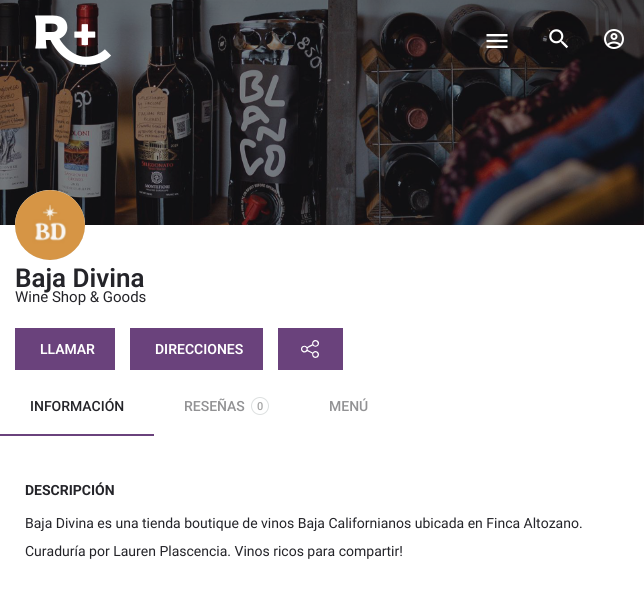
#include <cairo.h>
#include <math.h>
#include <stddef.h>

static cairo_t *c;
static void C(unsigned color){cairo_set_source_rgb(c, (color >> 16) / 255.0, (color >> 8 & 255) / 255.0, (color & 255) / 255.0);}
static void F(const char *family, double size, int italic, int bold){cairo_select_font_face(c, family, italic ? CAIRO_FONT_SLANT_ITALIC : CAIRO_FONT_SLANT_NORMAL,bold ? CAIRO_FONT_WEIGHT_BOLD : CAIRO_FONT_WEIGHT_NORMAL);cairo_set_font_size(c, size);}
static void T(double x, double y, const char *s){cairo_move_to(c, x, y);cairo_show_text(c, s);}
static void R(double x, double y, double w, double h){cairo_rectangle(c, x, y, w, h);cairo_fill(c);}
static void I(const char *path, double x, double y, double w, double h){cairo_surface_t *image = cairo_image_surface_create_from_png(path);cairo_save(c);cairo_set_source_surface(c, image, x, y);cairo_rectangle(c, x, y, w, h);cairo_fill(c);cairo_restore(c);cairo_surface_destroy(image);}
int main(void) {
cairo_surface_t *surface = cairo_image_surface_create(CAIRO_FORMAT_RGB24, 644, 590);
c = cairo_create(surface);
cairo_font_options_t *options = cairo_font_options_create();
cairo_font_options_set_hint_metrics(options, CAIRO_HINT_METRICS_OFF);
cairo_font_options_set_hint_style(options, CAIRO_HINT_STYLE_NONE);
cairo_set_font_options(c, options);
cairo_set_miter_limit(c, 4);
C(0xffffff);
cairo_paint(c);
I("5.png",0,0,644,225);
I("1.png",35,15,76,50);
I("2.png",486,34,22,14);
I("3.png",549,29,20,20);
I("4.png",604,29,20,20);
C(0xdde5e6);
cairo_arc(c,50,225,35,0,2 * M_PI);
cairo_fill(c);
I("6.png",15,190,70,70);
F("Roboto SemiBold",26,0,0);
C(0x242429);
T(15,287,"Baja Divina");
cairo_save(c);
cairo_rectangle(c,15,291,131,17);
cairo_clip(c);
F("Roboto",15,0,0);
T(15,302,"Wine Shop & Goods");
cairo_restore(c);
C(0x6a427c);
R(15,328,100,42);
F("Roboto SemiBold",14,0,0);
C(0xffffff);
T(40,354,"LLAMAR");
C(0x6a427c);
R(130,328,133,42);
C(0xffffff);
T(155,354,"DIRECCIONES");
C(0x6a427c);
R(278,328,65,42);
I("7.png",301,340,18,18);
F("Roboto Medium",14,0,0);
C(0x242429);
T(30,411,"INFORMACIÓN");
C(0x6a427c);
R(0,434,154,2);
C(0x929294);
T(184,411,"RESEÑAS");
cairo_new_path(c);
cairo_arc(c,260,406,8.5,0,2 * M_PI);
C(0xdde0e0);
cairo_set_line_width(c,1);
cairo_stroke(c);
F("Roboto Medium",11,0,0);
C(0xa4a4a4);
T(257,410,"0");
F("Roboto Medium",14,0,0);
C(0x929294);
T(329,411,"MENÚ");
F("Roboto",14,0,1);
C(0x242429);
T(25,495,"DESCRIPCIÓN");
F("Roboto",14,0,0);
T(25,528,"Baja Divina es una tienda boutique de vinos Baja Californianos ubicada en Finca Altozano.");
T(25,556,"Curaduría por Lauren Plascencia. Vinos ricos para compartir!");
cairo_surface_write_to_png(surface, "o.png");
cairo_font_options_destroy(options);
cairo_destroy(c);
cairo_surface_destroy(surface);
return 0;
}
